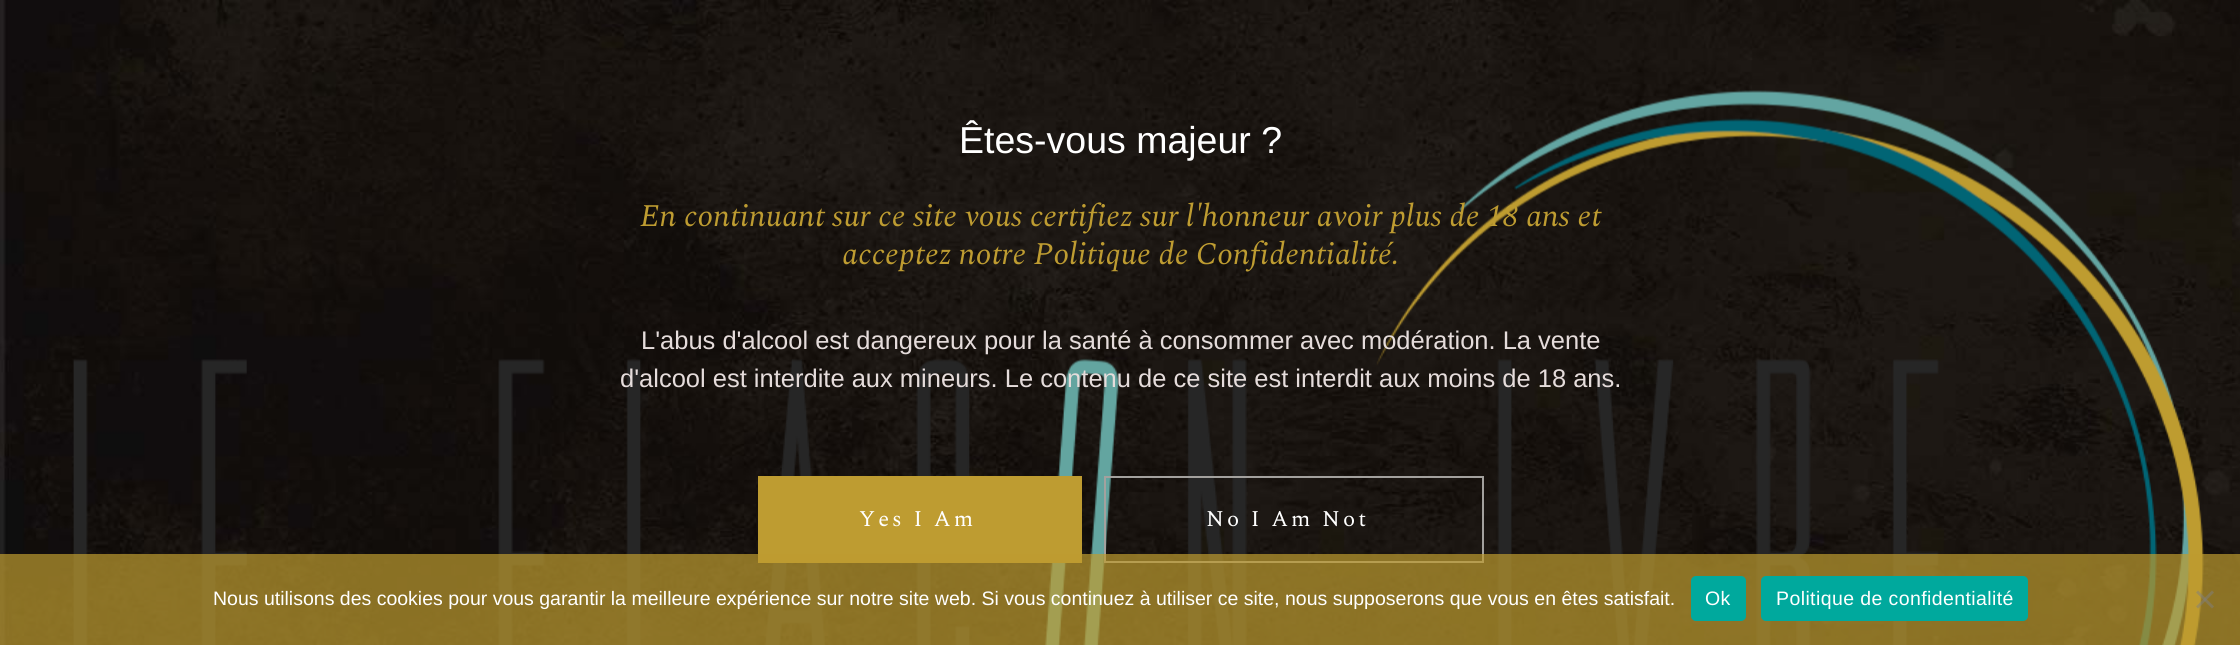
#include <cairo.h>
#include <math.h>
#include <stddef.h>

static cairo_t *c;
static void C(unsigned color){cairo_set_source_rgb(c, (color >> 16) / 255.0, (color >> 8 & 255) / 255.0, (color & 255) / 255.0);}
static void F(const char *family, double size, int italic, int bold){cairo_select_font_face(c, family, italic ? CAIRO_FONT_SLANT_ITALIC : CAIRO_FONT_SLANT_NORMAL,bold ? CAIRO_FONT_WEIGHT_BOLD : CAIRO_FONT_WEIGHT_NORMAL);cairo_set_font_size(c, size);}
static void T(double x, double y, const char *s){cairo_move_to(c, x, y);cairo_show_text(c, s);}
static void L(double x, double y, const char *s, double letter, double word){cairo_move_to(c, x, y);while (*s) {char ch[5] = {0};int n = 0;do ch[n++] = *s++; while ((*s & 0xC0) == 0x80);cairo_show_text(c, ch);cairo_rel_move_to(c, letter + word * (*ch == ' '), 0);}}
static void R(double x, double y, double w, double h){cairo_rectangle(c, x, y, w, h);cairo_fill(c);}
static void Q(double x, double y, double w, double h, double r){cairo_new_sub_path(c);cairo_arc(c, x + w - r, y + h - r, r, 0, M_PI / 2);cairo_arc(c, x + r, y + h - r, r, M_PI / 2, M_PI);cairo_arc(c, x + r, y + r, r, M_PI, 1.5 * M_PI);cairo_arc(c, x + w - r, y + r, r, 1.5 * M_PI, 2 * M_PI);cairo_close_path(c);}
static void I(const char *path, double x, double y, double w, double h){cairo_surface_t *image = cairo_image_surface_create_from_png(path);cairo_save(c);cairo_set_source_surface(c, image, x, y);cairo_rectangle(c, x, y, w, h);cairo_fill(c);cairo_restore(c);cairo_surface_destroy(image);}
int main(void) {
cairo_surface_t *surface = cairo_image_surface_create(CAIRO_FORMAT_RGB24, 2240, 645);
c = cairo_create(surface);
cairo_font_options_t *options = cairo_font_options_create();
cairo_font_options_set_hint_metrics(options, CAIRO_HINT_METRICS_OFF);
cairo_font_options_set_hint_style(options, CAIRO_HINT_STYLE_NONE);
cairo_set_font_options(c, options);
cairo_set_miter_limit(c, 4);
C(0xffffff);
cairo_paint(c);
I("1.png",0,0,2240,645);
I("2.png",73,90,2131,555);
F("Liberation Sans",37.5,0,0);
C(0xffffff);
T(959,153,"Êtes-vous majeur ?");
F("Spectral",31.5,1,0);
C(0xbe9c31);
T(640,226,"En continuant sur ce site vous certifiez sur l'honneur avoir plus de 18 ans et");
T(842,264,"acceptez notre Politique de Confidentialité.");
F("Liberation Sans",25.5,0,0);
C(0xe5dcdb);
T(641,349,"L'abus d'alcool est dangereux pour la santé à consommer avec modération. La vente");
T(620,387,"d'alcool est interdite aux mineurs. Le contenu de ce site est interdit aux moins de 18 ans.");
C(0xbe9c31);
R(758,476,324,87);
F("Spectral SC",22.5,0,0);
C(0xffffff);
L(859,526,"Yes I Am",3,0);
cairo_rectangle(c,1105,477,378,85);
C(0xa3a19e);
cairo_stroke(c);
C(0xffffff);
L(1206,526,"No I Am Not",3,0);
cairo_set_source_rgba(c,0.745,0.612,0.188,0.7);
R(0,554,2240,91);
F("Liberation Sans",19.5,0,0);
C(0xffffff);
T(213,605,"Nous utilisons des cookies pour vous garantir la meilleure expérience sur notre site web. Si vous continuez à utiliser ce site, nous supposerons que vous en êtes satisfait.");
C(0x00a99d);
Q(1691,576,55,45,5);
cairo_fill(c);
C(0xffffff);
L(1705,605,"Ok",.4,0);
C(0x00a99d);
Q(1761,576,267,45,5);
cairo_fill(c);
C(0xffffff);
L(1776,605,"Politique de confidentialité",.4,0);
cairo_set_source_rgba(c,0.502,0.502,0.502,0.5);
cairo_new_path(c);
cairo_move_to(c,2212,590.5);
cairo_line_to(c,2214,592.5);
cairo_line_to(c,2198,608.5);
cairo_line_to(c,2196,606.5);
cairo_close_path(c);
cairo_fill(c);
cairo_new_path(c);
cairo_move_to(c,2196,592.5);
cairo_line_to(c,2198,590.5);
cairo_line_to(c,2214,606.5);
cairo_line_to(c,2212,608.5);
cairo_close_path(c);
cairo_fill(c);
cairo_surface_write_to_png(surface, "o.png");
cairo_font_options_destroy(options);
cairo_destroy(c);
cairo_surface_destroy(surface);
return 0;
}
